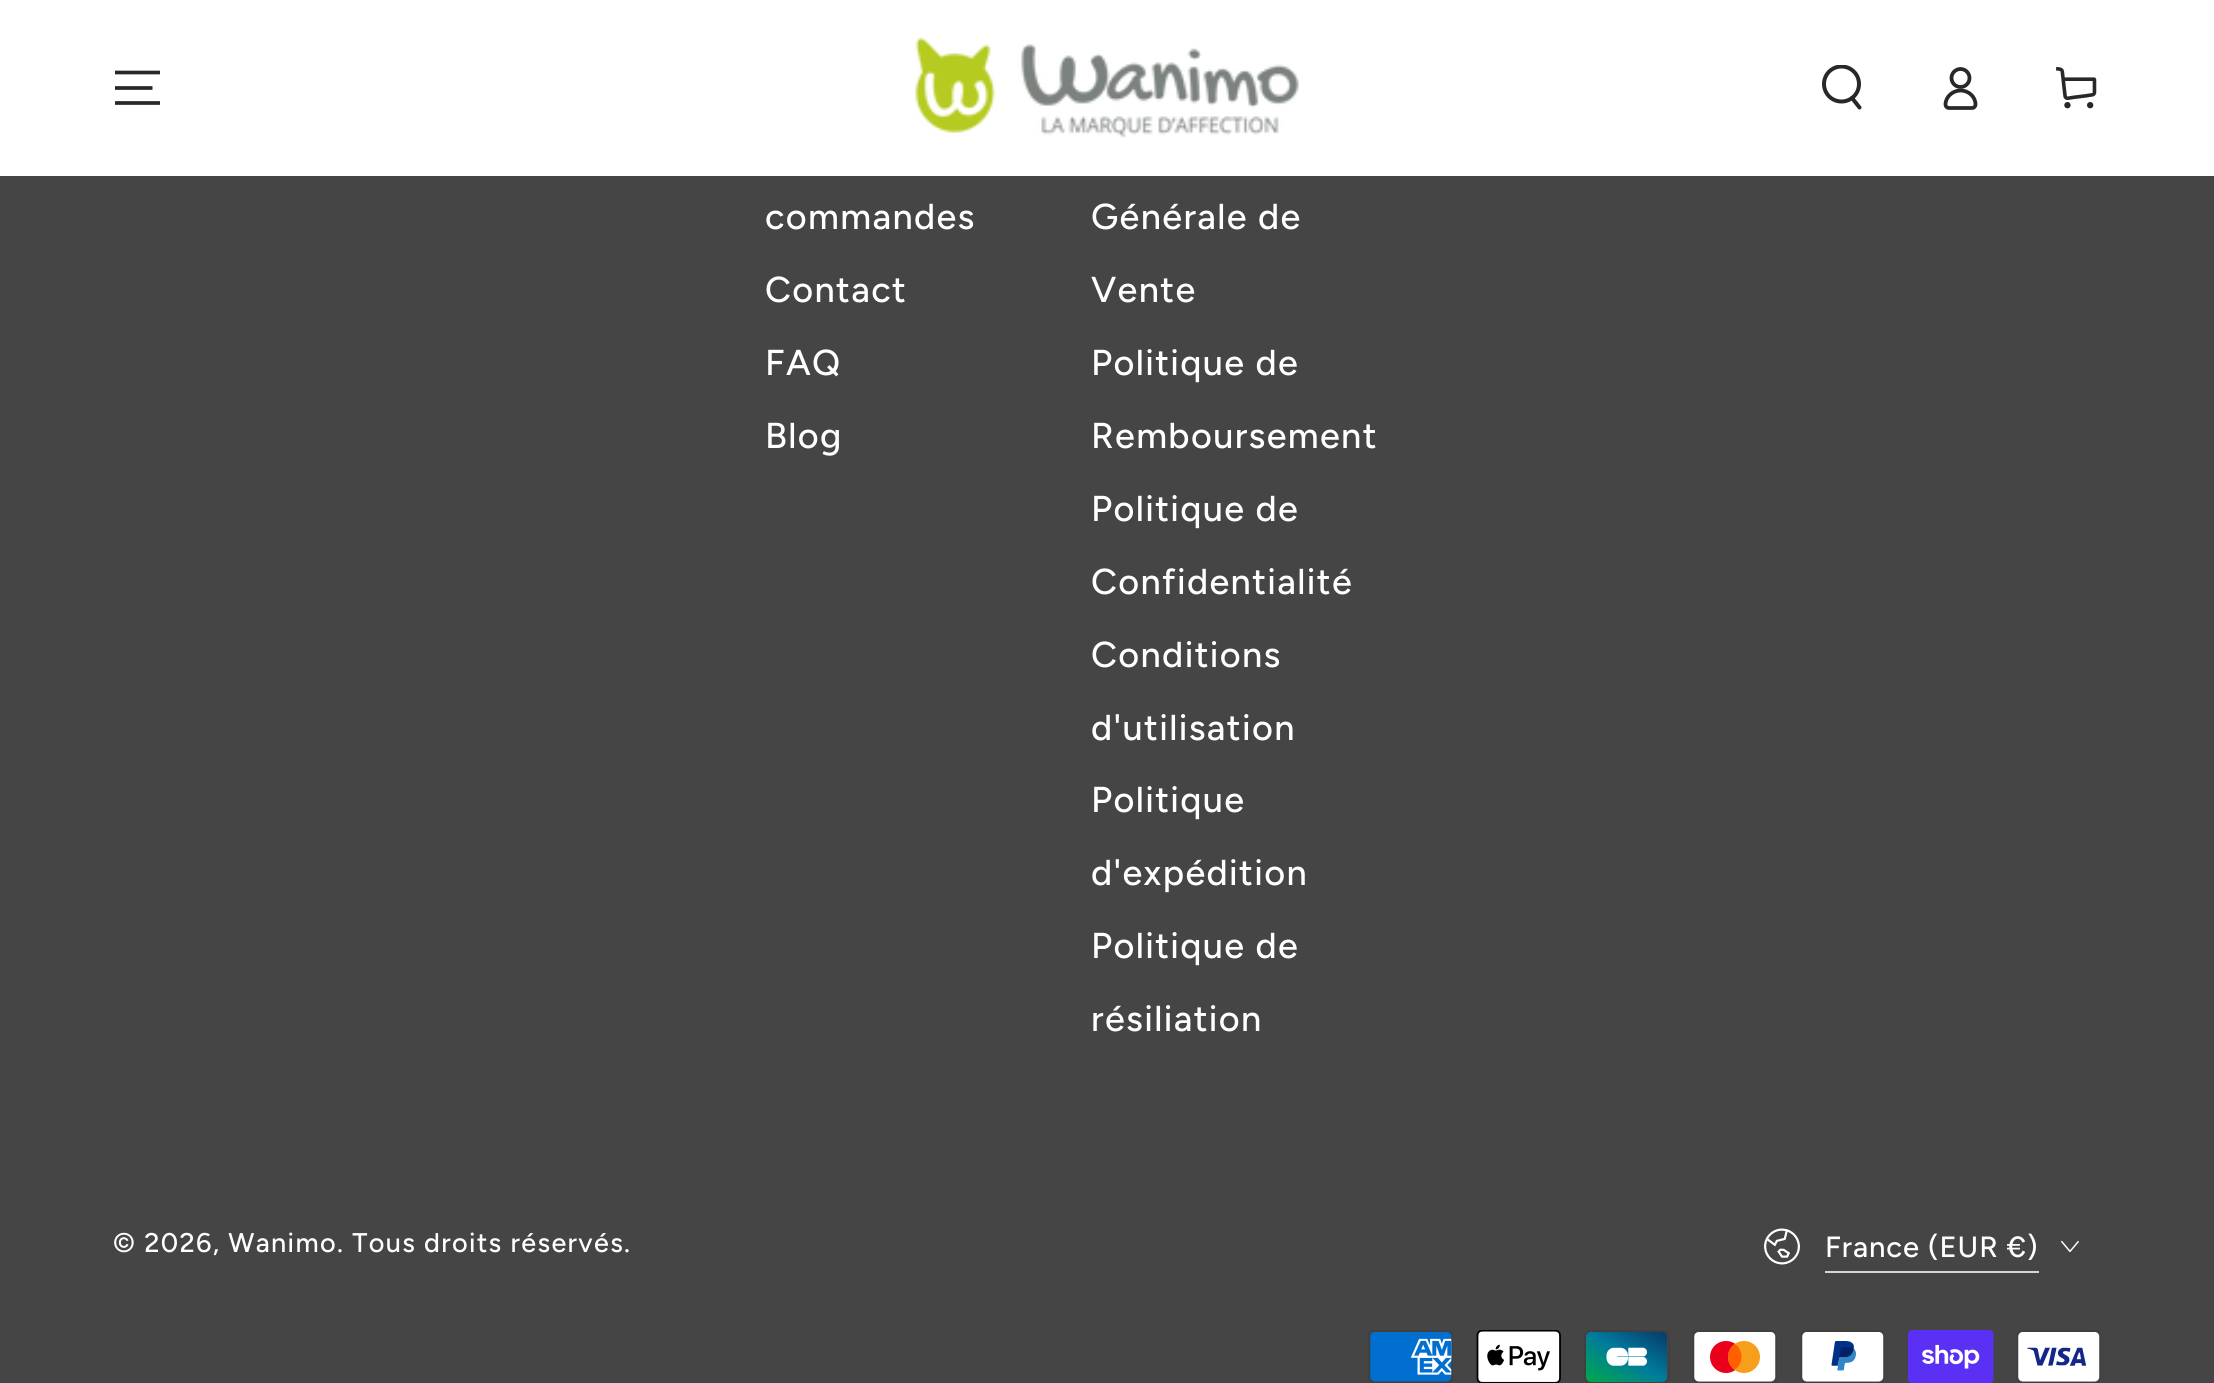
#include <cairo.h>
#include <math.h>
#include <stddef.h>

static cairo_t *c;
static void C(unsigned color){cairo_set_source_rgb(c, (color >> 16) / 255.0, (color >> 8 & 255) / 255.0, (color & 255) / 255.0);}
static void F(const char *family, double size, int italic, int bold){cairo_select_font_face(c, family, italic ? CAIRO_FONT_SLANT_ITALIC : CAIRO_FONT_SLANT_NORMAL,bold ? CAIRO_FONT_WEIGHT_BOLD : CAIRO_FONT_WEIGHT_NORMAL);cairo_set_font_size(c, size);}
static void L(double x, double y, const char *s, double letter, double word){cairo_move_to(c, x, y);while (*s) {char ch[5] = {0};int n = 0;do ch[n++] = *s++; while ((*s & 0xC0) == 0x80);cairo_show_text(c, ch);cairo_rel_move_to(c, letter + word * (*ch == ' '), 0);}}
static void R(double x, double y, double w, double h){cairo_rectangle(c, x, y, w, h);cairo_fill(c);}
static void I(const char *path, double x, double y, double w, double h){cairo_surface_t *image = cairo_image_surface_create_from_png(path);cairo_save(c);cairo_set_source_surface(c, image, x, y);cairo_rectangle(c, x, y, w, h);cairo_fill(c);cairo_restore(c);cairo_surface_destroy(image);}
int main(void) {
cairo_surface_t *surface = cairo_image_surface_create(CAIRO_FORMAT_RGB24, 2214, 1383);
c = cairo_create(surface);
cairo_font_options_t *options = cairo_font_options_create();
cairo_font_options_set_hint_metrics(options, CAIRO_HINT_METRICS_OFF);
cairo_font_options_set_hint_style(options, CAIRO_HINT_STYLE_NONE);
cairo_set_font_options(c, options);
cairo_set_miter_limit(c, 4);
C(0x454545);
cairo_paint(c);
C(0xffffff);
R(0,0,2214,176);
cairo_new_path(c);
cairo_move_to(c,115,103);
cairo_line_to(c,160,103);
cairo_move_to(c,115,88);
cairo_line_to(c,152.5,88);
cairo_move_to(c,115,72.5);
cairo_line_to(c,160,72.5);
C(0x282828);
cairo_set_line_width(c,3.7);
cairo_stroke(c);
I("1.png",915,37,384,101);
cairo_save(c);
cairo_rectangle(c,1820,65,45,45);
cairo_clip(c);
cairo_arc(c,1841.5,84,17.5,0,2 * M_PI);
cairo_set_line_width(c,4);
cairo_stroke(c);
cairo_restore(c);
cairo_new_path(c);
cairo_move_to(c,1852,98);
cairo_line_to(c,1859.5,107.5);
cairo_set_line_width(c,4);
cairo_set_line_cap(c,CAIRO_LINE_CAP_ROUND);
cairo_stroke(c);
cairo_new_path(c);
cairo_move_to(c,1960.5,90.5);
cairo_curve_to(c,1952.5,90.5,1945.5,97,1945.5,104.5);
cairo_curve_to(c,1945.5,106.5,1947,108,1949,108);
cairo_line_to(c,1972,108);
cairo_curve_to(c,1974,108,1975.5,106.5,1975.5,104.5);
cairo_curve_to(c,1975.5,97,1969,90.5,1960.5,90.5);
cairo_close_path(c);
cairo_set_line_width(c,3.8);
cairo_set_line_cap(c,CAIRO_LINE_CAP_BUTT);
cairo_stroke(c);
cairo_arc(c,1960.5,78,9,0,2 * M_PI);
cairo_stroke(c);
I("2.png",2056,67,41,42);
F("Figtree Medium",36,0,0);
C(0xffffff);
L(765,229,"commandes",1.35,0);
L(765,302,"Contact",1.35,0);
L(765,375,"FAQ",1.35,0);
L(765,448,"Blog",1.35,0);
L(1091,229,"Générale de",1.35,0);
L(1091,302,"Vente",1.35,0);
L(1091,375,"Politique de",1.35,0);
L(1091,448,"Remboursement",1.35,0);
L(1091,521,"Politique de",1.35,0);
L(1091,594,"Confidentialité",1.35,0);
L(1091,667,"Conditions",1.35,0);
L(1091,740,"d'utilisation",1.35,0);
L(1091,812,"Politique",1.35,0);
L(1091,885,"d'expédition",1.35,0);
L(1091,958,"Politique de",1.35,0);
L(1091,1031,"résiliation",1.35,0);
F("Figtree Medium",27,0,0);
L(113,1252,"© 2026, Wanimo. Tous droits réservés.",1.35,0);
I("3.png",1764,1228,36,37);
C(0xd2d5d9);
R(1825,1271,214,2);
F("Figtree Medium",29.25,0,0);
C(0xffffff);
L(1825,1257,"France (EUR €)",.9,0);
I("4.png",2061,1240,18,13);
I("5.png",1368,1330,85,53);
I("6.png",1476,1330,85,53);
I("7.png",1584,1330,86,53);
I("8.png",1692,1330,85,53);
I("9.png",1800,1330,85,53);
I("10.png",1908,1330,86,53);
I("11.png",2016,1330,85,53);
cairo_surface_write_to_png(surface, "o.png");
cairo_font_options_destroy(options);
cairo_destroy(c);
cairo_surface_destroy(surface);
return 0;
}
